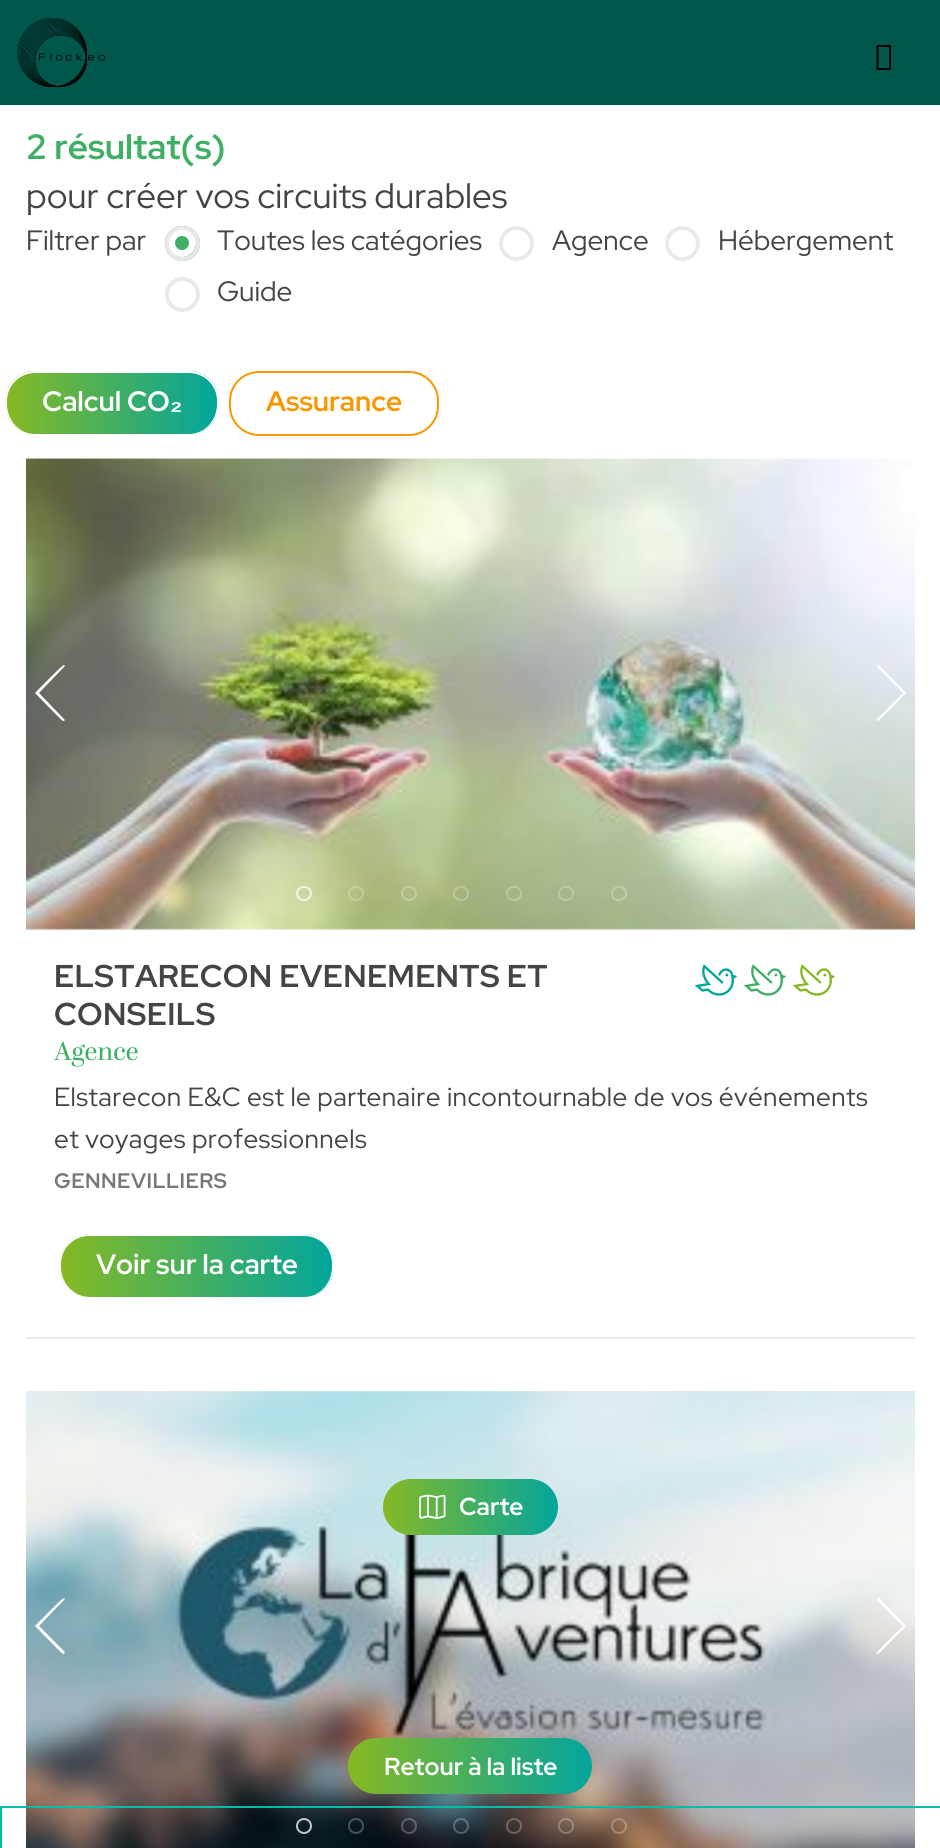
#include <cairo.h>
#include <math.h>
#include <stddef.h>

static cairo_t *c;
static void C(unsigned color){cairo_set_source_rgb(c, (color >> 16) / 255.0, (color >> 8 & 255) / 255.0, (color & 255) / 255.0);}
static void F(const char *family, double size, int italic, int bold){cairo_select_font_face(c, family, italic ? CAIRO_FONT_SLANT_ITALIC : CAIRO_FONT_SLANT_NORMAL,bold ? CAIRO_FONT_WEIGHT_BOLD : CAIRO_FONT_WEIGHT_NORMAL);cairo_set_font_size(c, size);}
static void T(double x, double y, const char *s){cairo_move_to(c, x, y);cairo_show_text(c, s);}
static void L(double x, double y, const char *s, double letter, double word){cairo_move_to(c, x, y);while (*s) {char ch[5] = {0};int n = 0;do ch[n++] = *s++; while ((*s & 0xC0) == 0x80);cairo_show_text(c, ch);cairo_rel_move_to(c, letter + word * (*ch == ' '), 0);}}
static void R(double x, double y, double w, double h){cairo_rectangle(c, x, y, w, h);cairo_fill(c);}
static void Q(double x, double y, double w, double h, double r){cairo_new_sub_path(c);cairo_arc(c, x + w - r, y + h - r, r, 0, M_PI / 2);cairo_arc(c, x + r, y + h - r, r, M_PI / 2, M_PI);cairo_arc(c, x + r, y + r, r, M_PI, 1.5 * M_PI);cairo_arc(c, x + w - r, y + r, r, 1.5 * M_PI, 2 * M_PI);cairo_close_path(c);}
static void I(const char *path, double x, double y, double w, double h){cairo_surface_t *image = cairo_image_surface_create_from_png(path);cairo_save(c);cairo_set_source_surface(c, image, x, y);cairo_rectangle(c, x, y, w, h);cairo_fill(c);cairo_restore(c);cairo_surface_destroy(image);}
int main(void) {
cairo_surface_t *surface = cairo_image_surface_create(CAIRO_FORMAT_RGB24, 940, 1848);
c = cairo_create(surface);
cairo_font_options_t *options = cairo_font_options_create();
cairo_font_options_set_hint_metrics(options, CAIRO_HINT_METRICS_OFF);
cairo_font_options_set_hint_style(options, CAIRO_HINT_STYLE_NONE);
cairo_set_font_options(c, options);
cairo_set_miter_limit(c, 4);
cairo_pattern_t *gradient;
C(0xffffff);
cairo_paint(c);
C(0x02574d);
R(0,0,940,105);
I("1.png",17,18,88,69);
C(0x000000);
cairo_new_path(c);
cairo_move_to(c,876.5,70);
cairo_line_to(c,876.5,45);
cairo_line_to(c,891,45);
cairo_line_to(c,891,70);
cairo_close_path(c);
cairo_move_to(c,878.5,68);
cairo_line_to(c,889,68);
cairo_line_to(c,889,47);
cairo_line_to(c,878.5,47);
cairo_close_path(c);
cairo_fill(c);
F("Red Hat Display",35,0,1);
C(0x3eaf65);
T(26,159,"2 résultat(s)");
F("Red Hat Display",35,0,0);
C(0x444444);
T(26,208,"pour créer vos circuits durables");
F("Red Hat Display",28,0,0);
T(26,250,"Filtrer par");
C(0x3eaf65);
cairo_new_path(c);
cairo_arc(c,182.5,243.5,17.5,0,2 * M_PI);
cairo_fill(c);
cairo_arc(c,182,243,10.5,0,2 * M_PI);
C(0xffffff);
cairo_set_line_width(c,7);
cairo_stroke(c);
cairo_arc(c,182.5,243.5,15.5,0,2 * M_PI);
C(0xe9e9e9);
cairo_set_line_width(c,4);
cairo_stroke(c);
C(0x444444);
T(217,250,"Toutes les catégories");
cairo_new_path(c);
cairo_arc(c,516.5,243.5,15.5,0,2 * M_PI);
C(0xe9e9e9);
cairo_stroke(c);
C(0x444444);
T(552,250,"Agence");
cairo_new_path(c);
cairo_arc(c,682.5,243.5,15.5,0,2 * M_PI);
C(0xe9e9e9);
cairo_stroke(c);
C(0x444444);
T(718,250,"Hébergement");
cairo_new_path(c);
cairo_arc(c,182.5,294.5,15.5,0,2 * M_PI);
C(0xe9e9e9);
cairo_stroke(c);
C(0x444444);
T(217,301,"Guide");
cairo_save(c);
Q(5,371,214,63,30);
cairo_clip(c);
gradient = cairo_pattern_create_linear(7,403,217,403);
cairo_pattern_add_color_stop_rgba(gradient,0,0.525,0.725,0.137,1);
cairo_pattern_add_color_stop_rgba(gradient,1,0.008,0.647,0.616,1);
cairo_set_source(c,gradient);
cairo_pattern_destroy(gradient);
R(7,371,210,63);
cairo_restore(c);
C(0xffffff);
cairo_set_fill_rule(c,CAIRO_FILL_RULE_EVEN_ODD);
cairo_new_path(c);
cairo_move_to(c,35,371);
cairo_line_to(c,189,371);
cairo_curve_to(c,205,371,219,384,219,401);
cairo_line_to(c,219,404);
cairo_curve_to(c,219,421,205,434,189,434);
cairo_line_to(c,35,434);
cairo_curve_to(c,19,434,5,421,5,404);
cairo_line_to(c,5,401);
cairo_curve_to(c,5,384,19,371,35,371);
cairo_close_path(c);
cairo_move_to(c,35,373);
cairo_line_to(c,189,373);
cairo_curve_to(c,204,373,217,385,217,401);
cairo_line_to(c,217,404);
cairo_curve_to(c,217,421,204,434,189,434);
cairo_line_to(c,35,434);
cairo_curve_to(c,20,434,7,421,7,404);
cairo_line_to(c,7,401);
cairo_curve_to(c,7,385,20,373,35,373);
cairo_close_path(c);
cairo_fill(c);
F("Red Hat Display",28,0,1);
T(42,411,"Calcul CO");
F("Liberation Sans",28,0,1);
T(170,411,"₂");
Q(230,372,208,63,29);
C(0xfa9600);
cairo_set_line_width(c,2);
cairo_stroke(c);
F("Red Hat Display",28,0,1);
T(266,411,"Assurance");
C(0xe9e9e9);
R(26,1337,889,2);
I("2.png",26,458,889,472);
C(0xffffff);
cairo_set_fill_rule(c,CAIRO_FILL_RULE_WINDING);
cairo_new_path(c);
cairo_move_to(c,63,721);
cairo_curve_to(c,65,721,65,720,64,719);
cairo_line_to(c,39,693);
cairo_line_to(c,64,667);
cairo_curve_to(c,65,666,65,665,64,665);
cairo_curve_to(c,62,665,38,690,35,693);
cairo_curve_to(c,38,696,62,721,63,721);
cairo_close_path(c);
cairo_fill(c);
cairo_save(c);
cairo_rectangle(c,877,665,30,56);
cairo_clip(c);
cairo_new_path(c);
cairo_move_to(c,878,721);
cairo_curve_to(c,877,721,876,720,877,719);
cairo_line_to(c,903,693);
cairo_line_to(c,877,667);
cairo_curve_to(c,876,666,878,664,879,665);
cairo_line_to(c,906,693);
cairo_curve_to(c,903,696,879,721,878,721);
cairo_close_path(c);
cairo_fill(c);
cairo_restore(c);
Q(297,887,14,13,6.5);
cairo_set_source_rgba(c,1,1,1,0.75);
cairo_stroke(c);
Q(349,887,14,13,6.5);
cairo_set_source_rgba(c,1,1,1,0.25);
cairo_stroke(c);
Q(402,887,14,13,6.5);
cairo_stroke(c);
Q(454,887,14,13,6.5);
cairo_stroke(c);
Q(507,887,14,13,6.5);
cairo_stroke(c);
Q(559,887,14,13,6.5);
cairo_stroke(c);
Q(612,887,14,13,6.5);
cairo_stroke(c);
F("Red Hat Display",31.5,0,1);
C(0x444444);
L(54,987,"ELSTARECON EVENEMENTS ET",.4,0);
L(54,1025,"CONSEILS",.4,0);
I("3.png",694,964,43,32);
I("4.png",743,964,43,32);
I("5.png",792,964,43,32);
F("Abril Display",26.25,0,0);
C(0x3eaf65);
T(54,1060,"Agence");
F("Red Hat Display",26.25,0,0);
C(0x444444);
L(54,1106,"Elstarecon E&C est le partenaire incontournable de vos événements",.4,0);
L(54,1148,"et voyages professionnels",.4,0);
F("Red Hat Display",21,0,1);
C(0x777777);
L(54,1188,"GENNEVILLIERS",.5,0);
cairo_save(c);
Q(60,1234,274,63,30);
cairo_clip(c);
gradient = cairo_pattern_create_linear(61,1266,333,1266);
cairo_pattern_add_color_stop_rgba(gradient,0,0.525,0.725,0.137,1);
cairo_pattern_add_color_stop_rgba(gradient,1,0.008,0.647,0.616,1);
cairo_set_source(c,gradient);
cairo_pattern_destroy(gradient);
R(61,1234,272,63);
cairo_restore(c);
C(0xffffff);
cairo_set_fill_rule(c,CAIRO_FILL_RULE_EVEN_ODD);
cairo_new_path(c);
cairo_move_to(c,89,1234);
cairo_line_to(c,304,1234);
cairo_curve_to(c,321,1234,334,1247,334,1264);
cairo_line_to(c,334,1267);
cairo_curve_to(c,334,1283,321,1297,304,1297);
cairo_line_to(c,89,1297);
cairo_curve_to(c,73,1297,60,1283,60,1267);
cairo_line_to(c,60,1264);
cairo_curve_to(c,60,1247,73,1234,89,1234);
cairo_close_path(c);
cairo_move_to(c,89,1236);
cairo_line_to(c,304,1236);
cairo_curve_to(c,320,1236,332,1248,332,1264);
cairo_line_to(c,332,1267);
cairo_curve_to(c,332,1283,320,1297,304,1297);
cairo_line_to(c,89,1297);
cairo_curve_to(c,74,1297,61,1283,61,1267);
cairo_line_to(c,61,1264);
cairo_curve_to(c,61,1248,74,1236,89,1236);
cairo_close_path(c);
cairo_fill(c);
F("Red Hat Display",28,0,1);
T(96,1274,"Voir sur la carte");
C(0xeaeaea);
R(26,1391,889,1);
I("6.png",26,1391,889,457);
C(0xffffff);
cairo_set_fill_rule(c,CAIRO_FILL_RULE_WINDING);
cairo_new_path(c);
cairo_move_to(c,63,1654);
cairo_curve_to(c,65,1654,65,1652,64,1651);
cairo_line_to(c,39,1626);
cairo_line_to(c,64,1600);
cairo_curve_to(c,65,1599,65,1598,64,1598);
cairo_curve_to(c,62,1598,38,1623,35,1626);
cairo_curve_to(c,38,1629,62,1654,63,1654);
cairo_close_path(c);
cairo_fill(c);
cairo_save(c);
cairo_rectangle(c,877,1598,30,56);
cairo_clip(c);
cairo_new_path(c);
cairo_move_to(c,878,1654);
cairo_curve_to(c,877,1654,876,1653,877,1652);
cairo_line_to(c,903,1626);
cairo_line_to(c,877,1600);
cairo_curve_to(c,876,1599,878,1597,879,1598);
cairo_line_to(c,906,1626);
cairo_curve_to(c,903,1629,879,1654,878,1654);
cairo_close_path(c);
cairo_fill(c);
cairo_restore(c);
cairo_arc(c,304,1826,7,0,2 * M_PI);
cairo_set_source_rgba(c,1,1,1,0.75);
cairo_stroke(c);
cairo_arc(c,356,1826,7,0,2 * M_PI);
cairo_set_source_rgba(c,1,1,1,0.25);
cairo_stroke(c);
cairo_arc(c,409,1826,7,0,2 * M_PI);
cairo_stroke(c);
cairo_arc(c,461,1826,7,0,2 * M_PI);
cairo_stroke(c);
cairo_arc(c,514,1826,7,0,2 * M_PI);
cairo_stroke(c);
cairo_arc(c,566,1826,7,0,2 * M_PI);
cairo_stroke(c);
cairo_arc(c,619,1826,7,0,2 * M_PI);
cairo_stroke(c);
gradient = cairo_pattern_create_linear(349,1766,592,1766);
cairo_pattern_add_color_stop_rgba(gradient,0,0.525,0.725,0.137,1);
cairo_pattern_add_color_stop_rgba(gradient,1,0.008,0.647,0.616,1);
cairo_set_source(c,gradient);
cairo_pattern_destroy(gradient);
Q(348,1738,244,56,28);
cairo_fill(c);
F("Red Hat Display",24.5,0,1);
C(0xffffff);
T(384,1775,"Retour à la liste");
cairo_rectangle(c,1,1807,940,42);
C(0x04bda7);
cairo_stroke(c);
gradient = cairo_pattern_create_linear(383,1507,558,1507);
cairo_pattern_add_color_stop_rgba(gradient,0,0.525,0.725,0.137,1);
cairo_pattern_add_color_stop_rgba(gradient,1,0.008,0.647,0.616,1);
cairo_set_source(c,gradient);
cairo_pattern_destroy(gradient);
Q(383,1479,175,56,28);
cairo_fill(c);
I("7.png",419,1494,27,25);
C(0xffffff);
T(459,1515,"Carte");
cairo_surface_write_to_png(surface, "o.png");
cairo_font_options_destroy(options);
cairo_destroy(c);
cairo_surface_destroy(surface);
return 0;
}
